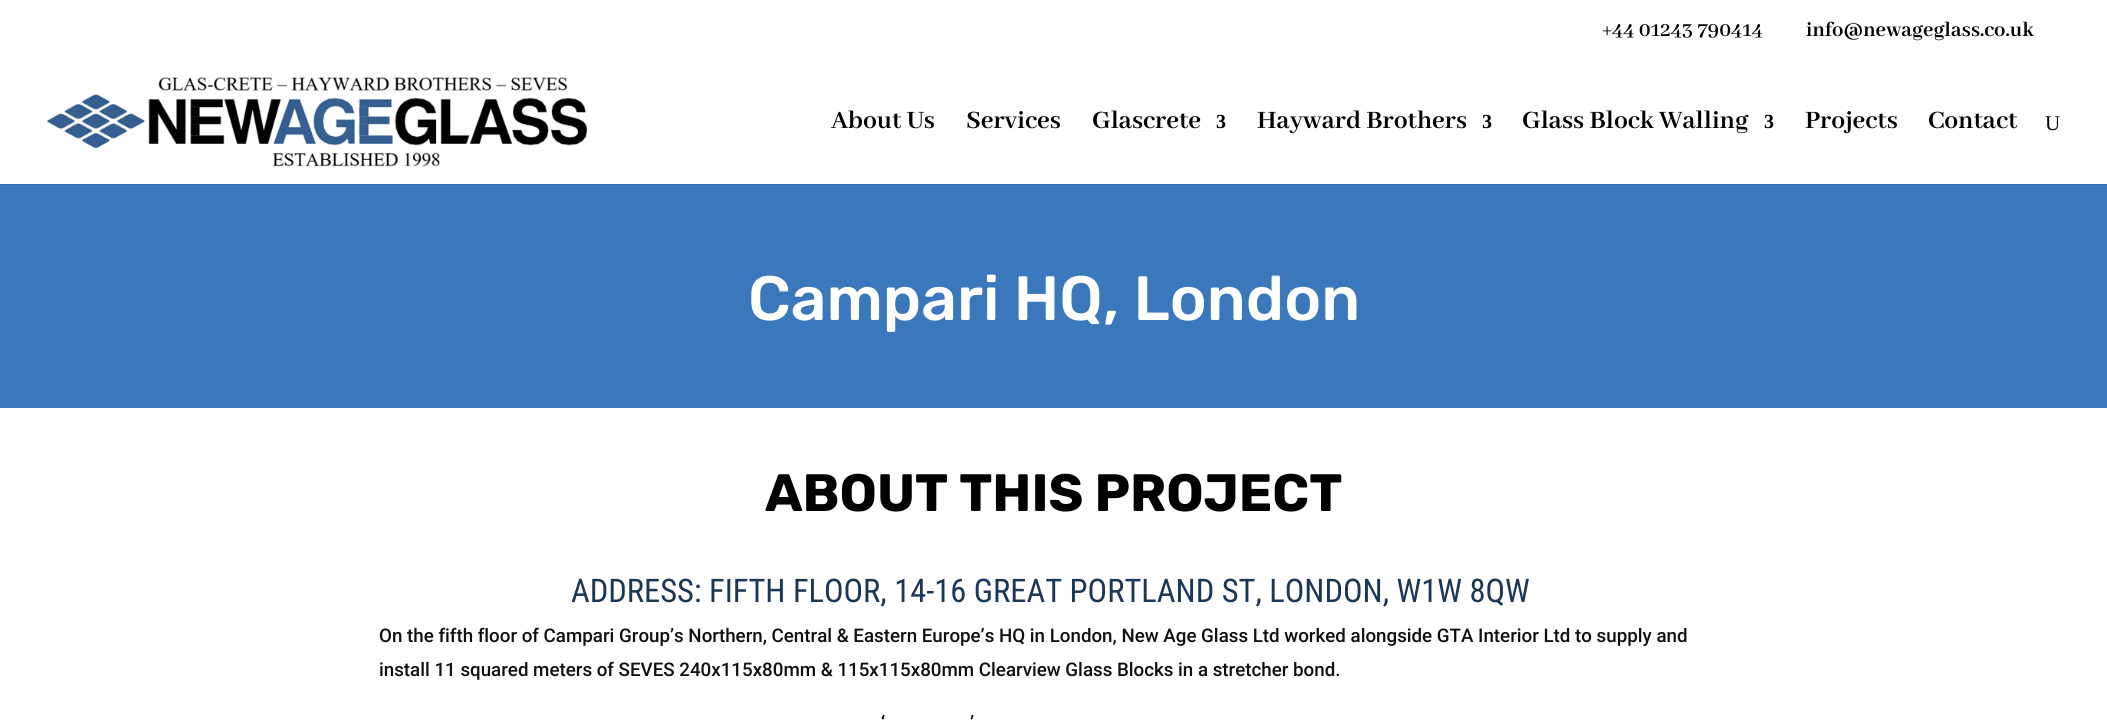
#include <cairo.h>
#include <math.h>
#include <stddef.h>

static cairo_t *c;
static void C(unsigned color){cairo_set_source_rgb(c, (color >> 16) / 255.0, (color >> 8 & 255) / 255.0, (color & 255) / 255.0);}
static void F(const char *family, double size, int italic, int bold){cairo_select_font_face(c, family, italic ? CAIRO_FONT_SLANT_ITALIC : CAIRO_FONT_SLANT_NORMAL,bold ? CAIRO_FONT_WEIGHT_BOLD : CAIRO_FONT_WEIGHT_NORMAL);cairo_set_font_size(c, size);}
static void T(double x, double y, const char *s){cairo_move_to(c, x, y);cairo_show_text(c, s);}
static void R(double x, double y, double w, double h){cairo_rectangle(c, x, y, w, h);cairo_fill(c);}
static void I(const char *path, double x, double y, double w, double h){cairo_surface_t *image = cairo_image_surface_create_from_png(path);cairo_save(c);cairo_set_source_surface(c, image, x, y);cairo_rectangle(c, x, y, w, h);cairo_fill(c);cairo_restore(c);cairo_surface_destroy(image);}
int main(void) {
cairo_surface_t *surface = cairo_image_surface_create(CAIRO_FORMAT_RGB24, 2107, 722);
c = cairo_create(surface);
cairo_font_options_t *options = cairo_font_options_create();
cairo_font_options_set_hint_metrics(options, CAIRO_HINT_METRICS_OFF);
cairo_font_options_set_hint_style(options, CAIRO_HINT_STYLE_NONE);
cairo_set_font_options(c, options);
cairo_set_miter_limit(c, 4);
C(0xffffff);
cairo_paint(c);
F("Abhaya Libre SemiBold SemiBold",22.5,0,0);
C(0x000000);
T(1602,36,"+44 01243 790414");
F("Abhaya Libre",22.5,0,1);
T(1806,36,"info@newageglass.co.uk");
C(0x356ca8);
cairo_new_path(c);
cairo_move_to(c,0,184);
cairo_line_to(c,0,185);
cairo_line_to(c,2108,185);
cairo_line_to(c,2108,60);
cairo_line_to(c,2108,184);
cairo_close_path(c);
cairo_fill(c);
I("1.png",46,77,542,90);
F("Abhaya Libre",27.5,0,1);
C(0x000000);
T(831,128,"About Us");
T(966,128,"Services");
T(1092,128,"Glascrete");
F("Liberation Serif",20,0,1);
T(1216,128,"3");
F("Abhaya Libre",27.5,0,1);
T(1257,128,"Hayward Brothers");
F("Liberation Serif",20,0,1);
T(1482,128,"3");
F("Abhaya Libre",27.5,0,1);
T(1522,128,"Glass Block Walling");
F("Liberation Serif",20,0,1);
T(1764,128,"3");
F("Abhaya Libre",27.5,0,1);
T(1805,128,"Projects");
T(1928,128,"Contact");
F("Liberation Serif",21,0,0);
T(2045,130,"U");
C(0x3b78bb);
R(0,185,2107,223);
F("Rubik Medium",62.5,0,0);
C(0xffffff);
T(748,320,"Campari HQ, London");
F("Rubik",52.5,0,1);
C(0x000000);
T(765,511,"ABOUT THIS PROJECT");
F("Roboto Condensed",32.5,0,0);
C(0x1c3656);
T(571,602,"ADDRESS: FIFTH FLOOR, 14-16 GREAT PORTLAND ST, LONDON, W1W 8QW");
F("Roboto Medium",18.75,0,0);
C(0x0f0f0f);
T(379,642,"On the fifth floor of Campari Group’s Northern, Central & Eastern Europe’s HQ in London, New Age Glass Ltd worked alongside GTA Interior Ltd to supply and");
T(379,676,"install 11 squared meters of SEVES 240x115x80mm & 115x115x80mm Clearview Glass Blocks in a stretcher bond.");
T(881,729,"‘");
T(970,729,"’");
cairo_surface_write_to_png(surface, "o.png");
cairo_font_options_destroy(options);
cairo_destroy(c);
cairo_surface_destroy(surface);
return 0;
}
